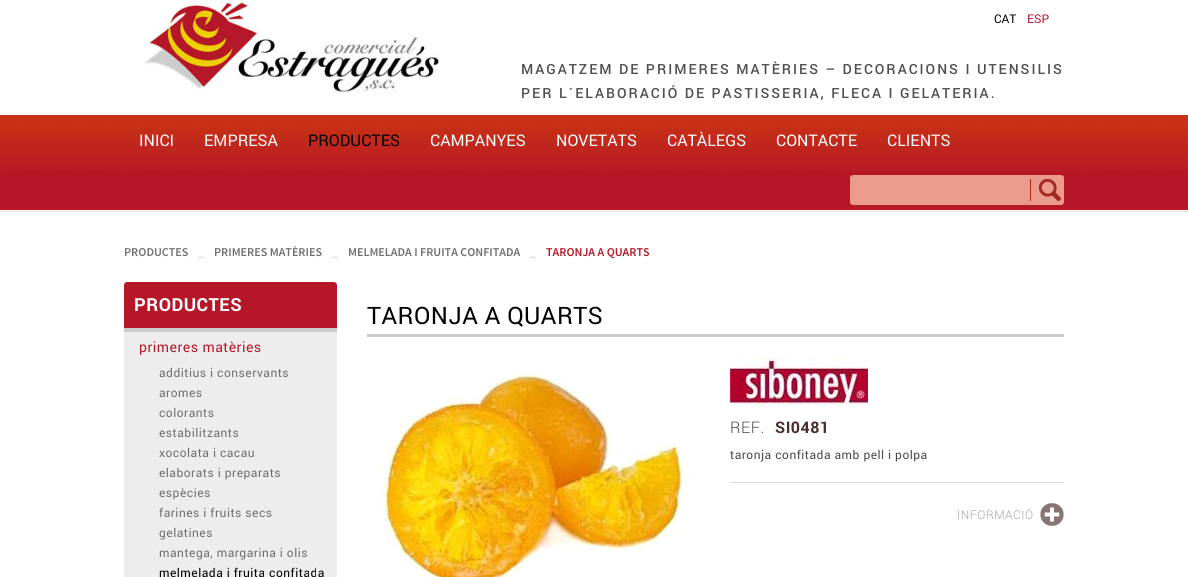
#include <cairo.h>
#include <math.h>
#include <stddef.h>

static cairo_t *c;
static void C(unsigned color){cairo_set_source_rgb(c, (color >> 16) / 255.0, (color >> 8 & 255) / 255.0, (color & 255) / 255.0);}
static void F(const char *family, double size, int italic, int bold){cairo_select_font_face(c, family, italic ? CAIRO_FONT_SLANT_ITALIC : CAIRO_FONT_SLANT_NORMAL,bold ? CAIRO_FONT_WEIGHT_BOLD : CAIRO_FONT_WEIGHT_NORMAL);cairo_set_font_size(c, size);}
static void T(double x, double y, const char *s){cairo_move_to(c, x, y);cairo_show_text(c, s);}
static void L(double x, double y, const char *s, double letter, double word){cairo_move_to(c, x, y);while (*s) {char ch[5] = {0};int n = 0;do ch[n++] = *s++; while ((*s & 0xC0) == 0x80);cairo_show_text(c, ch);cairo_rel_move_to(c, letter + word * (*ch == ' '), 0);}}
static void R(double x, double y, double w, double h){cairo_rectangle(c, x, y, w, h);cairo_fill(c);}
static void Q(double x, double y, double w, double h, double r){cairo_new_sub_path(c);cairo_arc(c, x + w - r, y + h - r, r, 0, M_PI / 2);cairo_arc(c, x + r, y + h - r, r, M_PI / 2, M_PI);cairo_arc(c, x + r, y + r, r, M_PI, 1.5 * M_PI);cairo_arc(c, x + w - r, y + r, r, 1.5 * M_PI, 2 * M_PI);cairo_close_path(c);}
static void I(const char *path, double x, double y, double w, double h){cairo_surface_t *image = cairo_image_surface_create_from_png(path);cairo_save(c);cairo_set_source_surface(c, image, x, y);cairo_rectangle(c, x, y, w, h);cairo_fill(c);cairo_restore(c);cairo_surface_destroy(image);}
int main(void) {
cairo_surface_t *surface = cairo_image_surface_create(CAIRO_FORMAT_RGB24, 1188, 577);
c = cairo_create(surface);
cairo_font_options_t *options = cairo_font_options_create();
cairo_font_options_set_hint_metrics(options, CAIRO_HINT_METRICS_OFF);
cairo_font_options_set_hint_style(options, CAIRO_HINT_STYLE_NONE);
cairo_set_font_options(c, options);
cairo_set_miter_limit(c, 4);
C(0xffffff);
cairo_paint(c);
I("1.png",144,0,295,93);
F("Roboto",12,0,0);
C(0x000000);
T(994,23,"CAT");
C(0xb61729);
T(1027,23,"ESP");
F("Roboto Medium",14,0,0);
C(0x4f4e4e);
L(521,74,"MAGATZEM DE PRIMERES MATÈRIES – DECORACIONS I UTENSILIS",2,0);
L(521,98,"PER L´ELABORACIÓ DE PASTISSERIA, FLECA I GELATERIA.",2,0);
C(0xb51729);
R(0,171,1188,39);
I("2.png",0,115,1188,56);
F("Roboto",16,0,0);
C(0xffffff);
T(139,146,"INICI");
T(204,146,"EMPRESA");
C(0x000000);
T(308,146,"PRODUCTES");
C(0xffffff);
T(430,146,"CAMPANYES");
T(556,146,"NOVETATS");
T(667,146,"CATÀLEGS");
T(776,146,"CONTACTE");
T(887,146,"CLIENTS");
C(0xea9b8c);
Q(850,175,214,30,3);
cairo_fill(c);
I("3.png",1030,179,31,22);
C(0xe6dfdf);
R(0,211,1188,1);
F("Source Sans Pro SemiBold",12,0,0);
C(0x6f6f6f);
T(124,256,"PRODUCTES");
C(0xcfc7c7);
T(198,256,"_");
C(0x6f6f6f);
T(214,256,"PRIMERES MATÈRIES");
C(0xcfc7c7);
T(332,256,"_");
C(0x6f6f6f);
T(348,256,"MELMELADA I FRUITA CONFITADA");
C(0xcfc7c7);
T(530,256,"_");
C(0xb61729);
T(546,256,"TARONJA A QUARTS");
C(0xb51729);
cairo_new_path(c);
cairo_move_to(c,127,282);
cairo_line_to(c,334,282);
cairo_curve_to(c,335.5,282,337,283.5,337,285);
cairo_line_to(c,337,332);
cairo_line_to(c,124,332);
cairo_line_to(c,124,285);
cairo_curve_to(c,124,283.5,125.5,282,127,282);
cairo_close_path(c);
cairo_fill(c);
C(0xcccaca);
R(124,328,213,4);
F("Roboto",18,0,1);
C(0xffffff);
L(134,311,"PRODUCTES",.5,0);
C(0xededed);
R(124,332,213,245);
F("Roboto",14,0,0);
C(0xb61729);
L(139,352,"primeres matèries",.5,0);
F("Roboto",12,0,0);
C(0x6f6f6f);
L(159,377,"additius i conservants",.5,0);
L(159,397,"aromes",.5,0);
L(159,417,"colorants",.5,0);
L(159,437,"estabilitzants",.5,0);
L(159,457,"xocolata i cacau",.5,0);
L(159,477,"elaborats i preparats",.5,0);
L(159,497,"espècies",.5,0);
L(159,517,"farines i fruits secs",.5,0);
L(159,537,"gelatines",.5,0);
L(159,557,"mantega, margarina i olis",.5,0);
C(0x000000);
L(159,577,"melmelada i fruita confitada",.5,0);
C(0xcccaca);
R(367,334,697,3);
F("Roboto",24,0,0);
C(0x000000);
L(367,324,"TARONJA A QUARTS",.5,0);
I("4.png",377,367,313,210);
I("5.png",730,357,138,49);
F("Roboto Light",16,0,0);
C(0x514646);
L(730,433,"REF.",.5,0);
F("Roboto",16,0,1);
C(0x4b2c2c);
L(775,433,"SI0481",.5,0);
F("Roboto",12,0,0);
C(0x514646);
L(730,459,"taronja confitada amb pell i polpa",.5,0);
C(0xdcdcdc);
R(730,482,334,1);
I("6.png",1040,503,24,23);
F("Roboto Light",12,0,0);
C(0xa6a2a2);
L(957,519,"INFORMACIÓ",.5,0);
cairo_surface_write_to_png(surface, "o.png");
cairo_font_options_destroy(options);
cairo_destroy(c);
cairo_surface_destroy(surface);
return 0;
}
